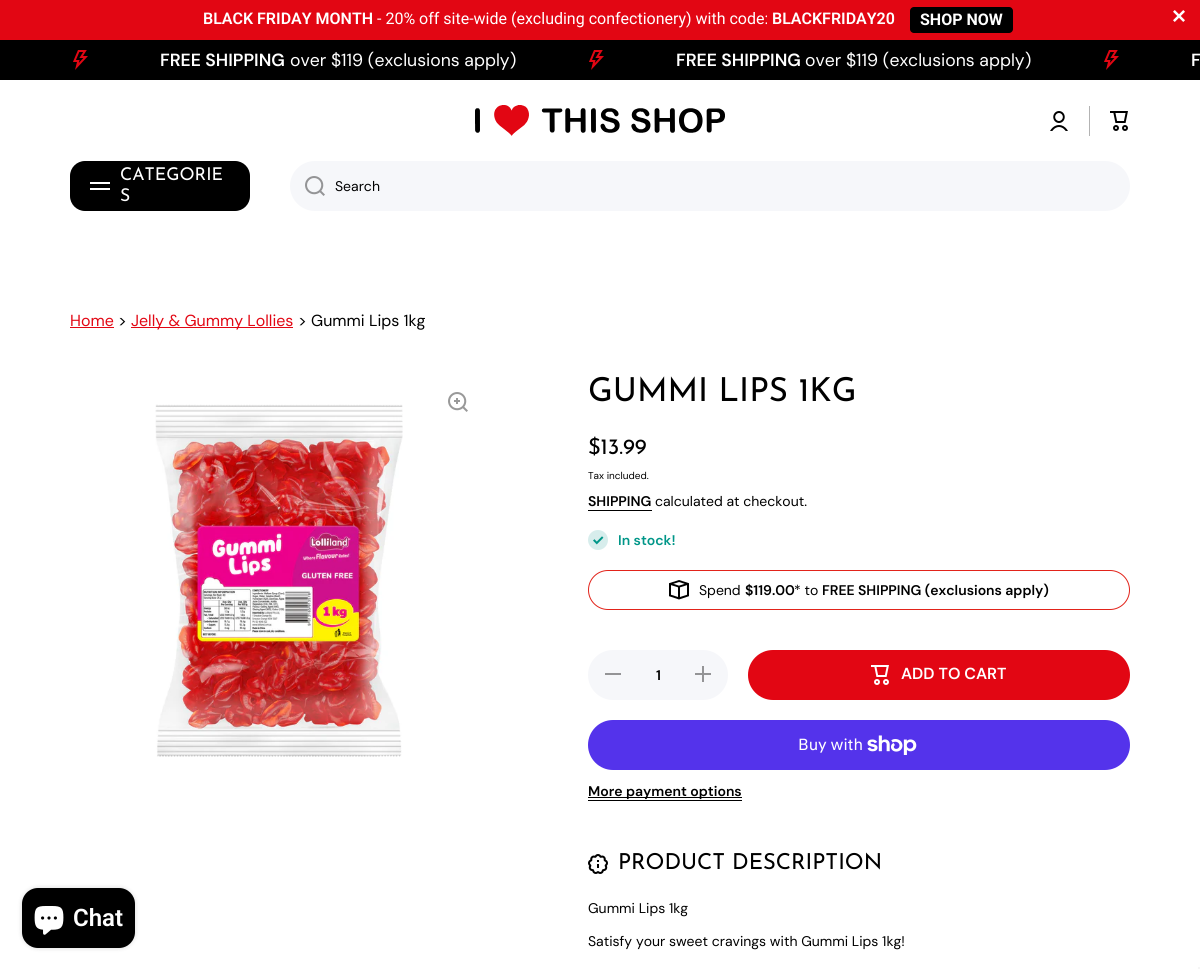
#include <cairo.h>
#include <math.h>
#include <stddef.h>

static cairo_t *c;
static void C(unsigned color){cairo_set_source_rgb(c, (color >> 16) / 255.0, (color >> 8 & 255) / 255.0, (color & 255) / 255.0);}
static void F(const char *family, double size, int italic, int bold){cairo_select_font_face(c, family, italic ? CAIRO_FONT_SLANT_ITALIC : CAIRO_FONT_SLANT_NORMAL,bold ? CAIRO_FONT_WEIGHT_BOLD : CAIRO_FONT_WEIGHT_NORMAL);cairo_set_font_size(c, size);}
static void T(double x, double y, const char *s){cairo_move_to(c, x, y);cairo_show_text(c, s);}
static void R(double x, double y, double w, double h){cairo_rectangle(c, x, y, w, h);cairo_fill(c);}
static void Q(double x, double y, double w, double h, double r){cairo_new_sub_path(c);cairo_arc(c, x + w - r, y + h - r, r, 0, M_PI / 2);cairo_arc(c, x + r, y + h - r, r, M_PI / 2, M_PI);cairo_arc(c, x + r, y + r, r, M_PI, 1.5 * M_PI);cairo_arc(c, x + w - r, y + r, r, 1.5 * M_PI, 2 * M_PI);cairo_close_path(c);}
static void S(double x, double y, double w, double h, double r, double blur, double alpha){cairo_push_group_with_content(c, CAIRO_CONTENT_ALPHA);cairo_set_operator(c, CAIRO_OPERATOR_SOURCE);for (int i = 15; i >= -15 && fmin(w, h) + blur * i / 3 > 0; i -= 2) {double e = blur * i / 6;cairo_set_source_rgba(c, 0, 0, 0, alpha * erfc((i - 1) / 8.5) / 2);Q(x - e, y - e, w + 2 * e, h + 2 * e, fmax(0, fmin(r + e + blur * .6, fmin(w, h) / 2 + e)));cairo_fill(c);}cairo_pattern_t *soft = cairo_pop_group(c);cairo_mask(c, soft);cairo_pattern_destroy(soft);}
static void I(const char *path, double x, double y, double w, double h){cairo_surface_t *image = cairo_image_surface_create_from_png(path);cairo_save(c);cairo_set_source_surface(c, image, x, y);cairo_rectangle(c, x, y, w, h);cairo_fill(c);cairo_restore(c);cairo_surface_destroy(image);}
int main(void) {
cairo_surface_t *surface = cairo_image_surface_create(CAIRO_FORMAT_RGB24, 1200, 969);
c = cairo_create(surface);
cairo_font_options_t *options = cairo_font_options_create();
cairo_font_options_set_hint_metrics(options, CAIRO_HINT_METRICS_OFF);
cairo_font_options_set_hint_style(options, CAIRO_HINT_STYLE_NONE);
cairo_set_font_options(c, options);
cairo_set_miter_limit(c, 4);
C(0xffffff);
cairo_paint(c);
C(0xe20613);
R(0,0,1200,40);
F("Roboto SemiBold",16,0,0);
C(0xffffff);
T(203,24,"BLACK FRIDAY MONTH");
F("Roboto",16,0,0);
T(377,24,"- 20% off site-wide (excluding confectionery) with code:");
F("Roboto SemiBold",16,0,0);
T(772,24,"BLACKFRIDAY20");
C(0x000000);
Q(910,7,103,26,4);
cairo_fill(c);
F("Roboto",16,0,1);
C(0xffffff);
T(920,25,"SHOP NOW");
I("1.png",1173,10,12,12);
C(0x000000);
R(0,40,1200,40);
I("2.png",73,50,15,20);
F("DM Sans SemiBold",17.6,0,0);
C(0xffffff);
T(160,66,"FREE SHIPPING");
F("DM Sans",17.6,0,0);
T(290,66,"over $119 (exclusions apply)");
I("2.png",589,50,15,20);
F("DM Sans SemiBold",17.6,0,0);
T(676,66,"FREE SHIPPING");
F("DM Sans",17.6,0,0);
T(805,66,"over $119 (exclusions apply)");
I("2.png",1104,50,15,20);
F("DM Sans SemiBold",17.6,0,0);
T(1191,66,"F");
I("3.png",475,105,250,31);
I("4.png",1050,111,18,20);
C(0xb3b3b3);
R(1089,106,1,30);
I("5.png",1110,111,18,20);
C(0x000000);
Q(70,161,180,50,15);
cairo_fill(c);
C(0xffffff);
R(90,182,20,2);
R(90,188,20,2);
F("Josefin Sans",17.6,0,0);
T(120,180,"CATEGORIE");
T(120,201,"S");
C(0xf6f7fa);
Q(290,161,840,50,25);
cairo_fill(c);
I("6.png",305,176,20,20);
F("DM Sans",14,0,0);
C(0x000000);
T(335,191,"Search");
F("DM Sans",16,0,0);
C(0xe20613);
T(70,326,"Home");
R(70,327,44,1);
C(0x000000);
T(118,326,">");
C(0xe20613);
R(131,327,162,1);
T(131,326,"Jelly & Gummy Lollies");
C(0x000000);
T(298,326,"> Gummi Lips 1kg");
I("7.png",448,392,20,20);
I("8.png",155,404,248,353);
F("Josefin Sans",33,0,0);
T(588,401,"GUMMI LIPS 1KG");
F("Josefin Sans",22,0,0);
T(588,454,"$13.99");
F("DM Sans",10,0,0);
T(588,479,"Tax included.");
F("DM Sans SemiBold",14,0,0);
T(588,506,"SHIPPING");
R(588,510,64,1);
F("DM Sans",14,0,0);
T(655,506,"calculated at checkout.");
I("9.png",588,530,20,20);
F("DM Sans SemiBold",14,0,0);
C(0x009688);
T(618,545,"In stock!");
Q(588.5,570.5,541,39,19.5);
C(0xe2231a);
cairo_set_line_width(c,1);
cairo_stroke(c);
I("10.png",669,580,20,20);
F("DM Sans",14,0,0);
C(0x000000);
T(699,595,"Spend");
F("DM Sans SemiBold",14,0,0);
T(745,595,"$119.00");
F("DM Sans",14,0,0);
T(794,595,"* to");
F("DM Sans SemiBold",14,0,0);
T(822,595,"FREE SHIPPING (exclusions apply)");
C(0xf6f7fa);
Q(588,650,140,50,25);
cairo_fill(c);
C(0x949496);
R(605,673,16,2);
C(0x000000);
T(656,680,"1");
I("11.png",695,666,16,16);
C(0xe20613);
Q(748,650,382,50,25);
cairo_fill(c);
I("12.png",871,665,18,20);
F("DM Sans SemiBold",16,0,0);
C(0xffffff);
T(901,679,"ADD TO CART");
C(0x5433eb);
Q(588,720,542,50,25);
cairo_fill(c);
F("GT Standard",16,0,0);
C(0xffffff);
T(798,750,"Buy with");
I("13.png",867,735,50,20);
C(0x000000);
R(588,797,154,1);
F("DM Sans SemiBold",14,0,0);
T(588,796,"More payment options");
R(588,800,154,1);
I("14.png",588,854,20,20);
F("Josefin Sans",22,0,0);
T(618,869,"PRODUCT DESCRIPTION");
F("DM Sans",14,0,0);
T(588,913,"Gummi Lips 1kg");
T(588,946,"Satisfy your sweet cravings with Gummi Lips 1kg!");
C(0x000000);
S(22,888,113,60,16,2.5,.15);
C(0x000000);
Q(22,888,113,60,16);
cairo_fill(c);
I("15.png",34,906,30,29);
F("Roboto SemiBold",24,0,0);
C(0xffffff);
T(73,926,"Chat");
C(0xf5f5f5);
R(1198,967,2,2);
cairo_surface_write_to_png(surface, "o.png");
cairo_font_options_destroy(options);
cairo_destroy(c);
cairo_surface_destroy(surface);
return 0;
}
